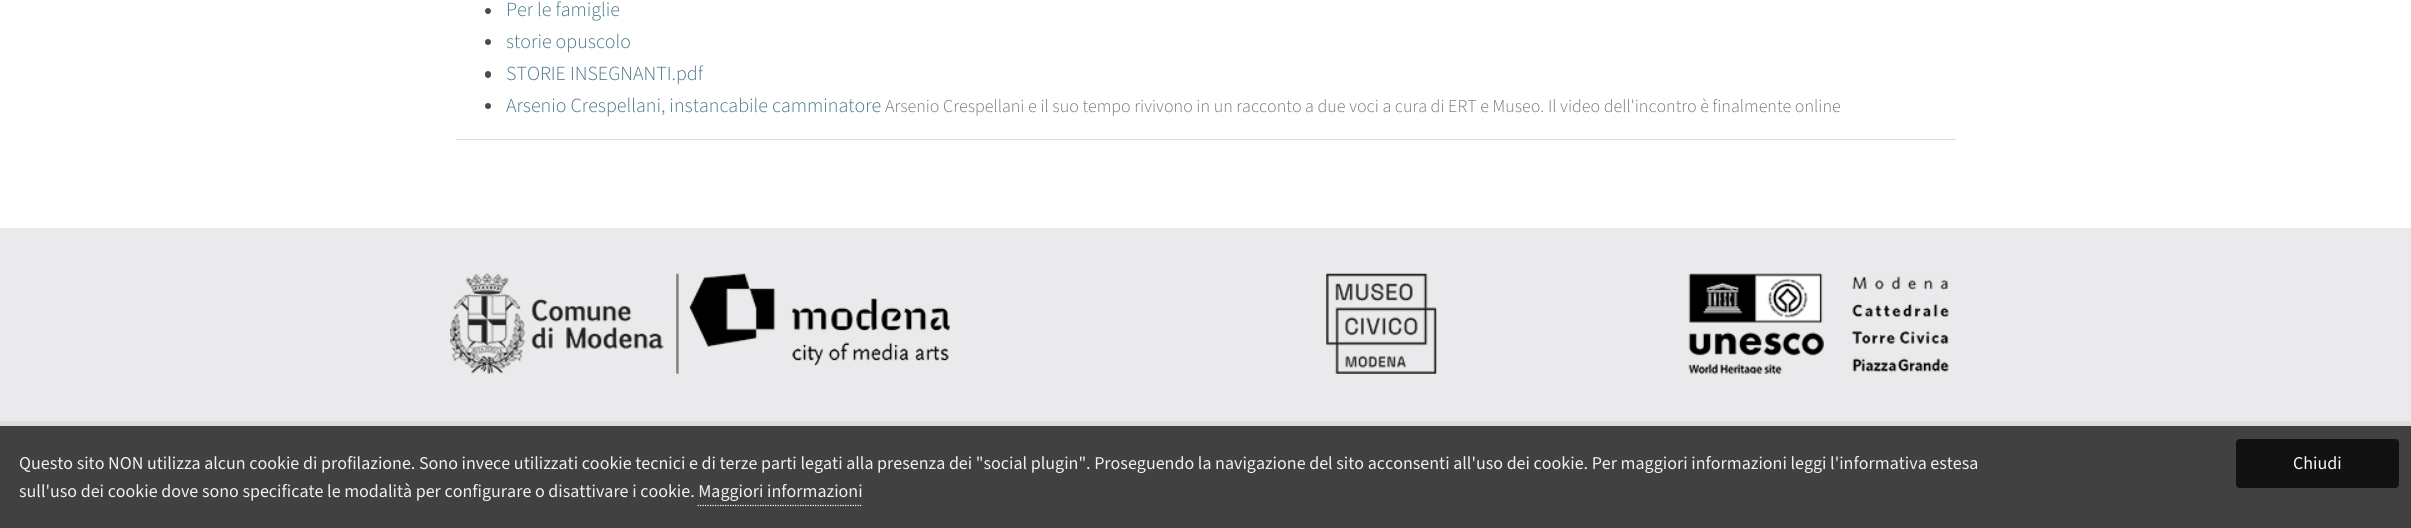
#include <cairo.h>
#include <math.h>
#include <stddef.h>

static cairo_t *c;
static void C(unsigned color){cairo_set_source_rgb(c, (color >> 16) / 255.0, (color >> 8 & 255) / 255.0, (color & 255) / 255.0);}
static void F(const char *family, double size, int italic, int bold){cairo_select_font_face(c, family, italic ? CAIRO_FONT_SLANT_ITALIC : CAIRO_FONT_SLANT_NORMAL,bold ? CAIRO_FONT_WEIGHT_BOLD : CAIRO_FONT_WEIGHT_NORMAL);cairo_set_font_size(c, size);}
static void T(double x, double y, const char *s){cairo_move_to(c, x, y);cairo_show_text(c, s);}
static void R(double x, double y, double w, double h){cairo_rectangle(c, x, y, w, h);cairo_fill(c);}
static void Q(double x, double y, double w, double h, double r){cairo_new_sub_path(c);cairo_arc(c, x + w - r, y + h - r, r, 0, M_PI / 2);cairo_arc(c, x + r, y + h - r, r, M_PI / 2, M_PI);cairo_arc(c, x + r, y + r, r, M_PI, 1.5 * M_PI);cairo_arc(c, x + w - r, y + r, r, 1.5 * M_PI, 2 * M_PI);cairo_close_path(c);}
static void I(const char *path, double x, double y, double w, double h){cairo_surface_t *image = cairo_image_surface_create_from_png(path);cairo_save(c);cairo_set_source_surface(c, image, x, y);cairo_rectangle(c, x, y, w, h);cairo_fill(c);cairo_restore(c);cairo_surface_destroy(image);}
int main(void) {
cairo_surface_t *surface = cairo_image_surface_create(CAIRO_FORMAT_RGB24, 2411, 528);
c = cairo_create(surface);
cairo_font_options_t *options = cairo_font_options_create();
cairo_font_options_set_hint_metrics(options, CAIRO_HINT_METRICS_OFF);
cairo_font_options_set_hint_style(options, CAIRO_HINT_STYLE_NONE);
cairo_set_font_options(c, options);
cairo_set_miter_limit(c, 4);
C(0xffffff);
cairo_paint(c);
C(0x4a4a4a);
cairo_arc(c,488,11,3,0,2 * M_PI);
cairo_fill(c);
F("Source Sans 3 Light",20,0,0);
C(0x477688);
T(506,16,"Per le famiglie");
C(0x4a4a4a);
cairo_new_path(c);
cairo_arc(c,488,42,3,0,2 * M_PI);
cairo_fill(c);
C(0x477688);
T(506,48,"storie opuscolo");
C(0x4a4a4a);
Q(485,71,6,7,3);
cairo_fill(c);
C(0x477688);
T(506,80,"STORIE INSEGNANTI.pdf");
C(0x4a4a4a);
cairo_new_path(c);
cairo_arc(c,488,106,3,0,2 * M_PI);
cairo_fill(c);
C(0x477688);
T(506,112,"Arsenio Crespellani, instancabile camminatore");
F("Source Sans 3 Light",18,0,0);
C(0x777777);
T(885,112,"Arsenio Crespellani e il suo tempo rivivono in un racconto a due voci a cura di ERT e Museo. Il video dell'incontro è finalmente online");
C(0xdddddd);
R(456,139,1500,1);
C(0xeaeaec);
R(0,228,2411,193);
I("1.png",450,273,500,101);
I("2.png",1326,273,111,101);
I("3.png",1688,273,261,101);
C(0xdddde0);
R(0,421,2411,5);
C(0x414141);
R(0,426,2411,102);
F("Source Sans 3",18,0,0);
C(0xf0f0f0);
T(19,469,"Questo sito NON utilizza alcun cookie di profilazione. Sono invece utilizzati cookie tecnici e di terze parti legati alla presenza dei \"social plugin\". Proseguendo la navigazione del sito acconsenti all'uso dei cookie. Per maggiori informazioni leggi l'informativa estesa");
T(19,497,"sull'uso dei cookie dove sono specificate le modalità per configurare o disattivare i cookie. Maggiori informazioni");
cairo_new_path(c);
cairo_move_to(c,697.5,505.5);
cairo_line_to(c,862.5,505.5);
C(0xfcfcfd);
cairo_set_line_width(c,1.2);
cairo_set_dash(c,(double[]){1.25,1.25},2,0);
cairo_stroke(c);
C(0x121212);
Q(2236,439,163,49,4);
cairo_fill(c);
C(0xfcfcfd);
T(2293,469,"Chiudi");
cairo_surface_write_to_png(surface, "o.png");
cairo_font_options_destroy(options);
cairo_destroy(c);
cairo_surface_destroy(surface);
return 0;
}
